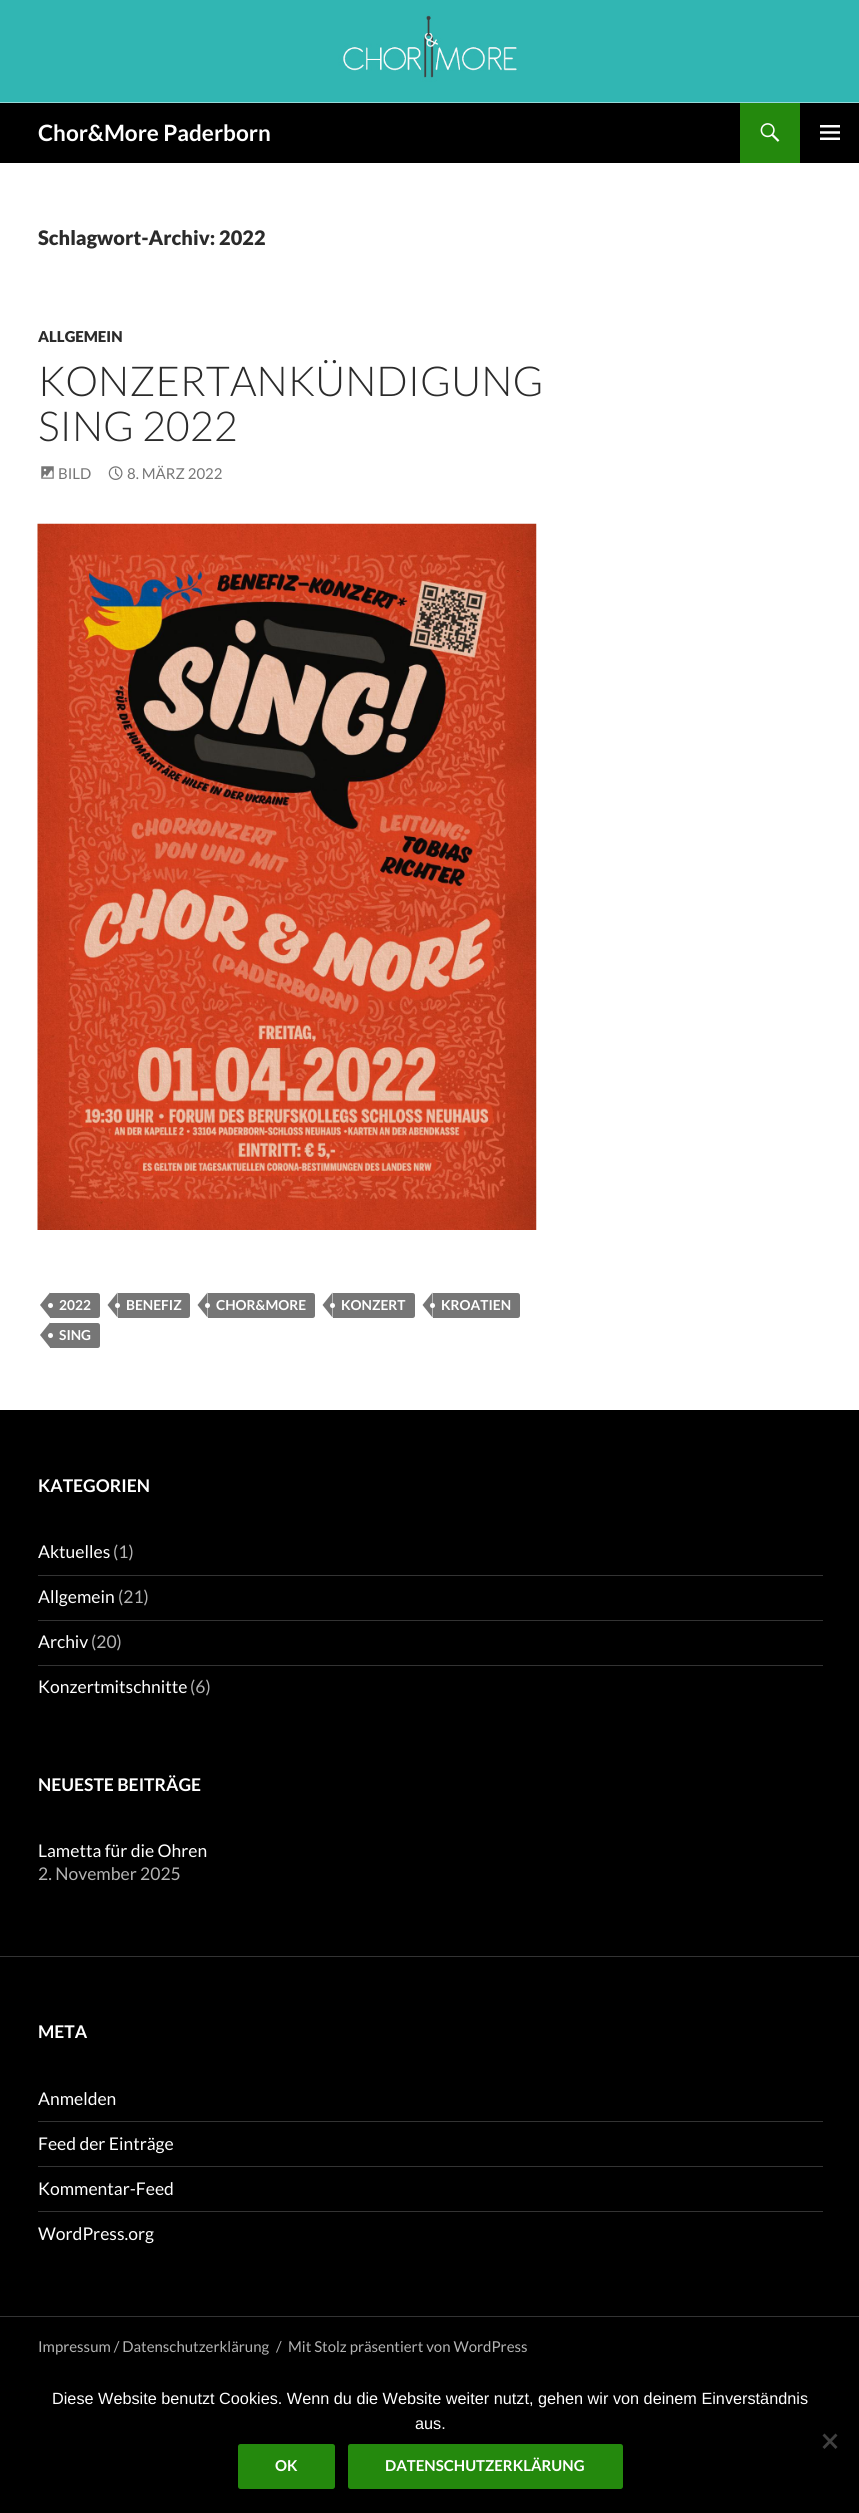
#include <cairo.h>
#include <math.h>
#include <stddef.h>

static cairo_t *c;
static void C(unsigned color){cairo_set_source_rgb(c, (color >> 16) / 255.0, (color >> 8 & 255) / 255.0, (color & 255) / 255.0);}
static void F(const char *family, double size, int italic, int bold){cairo_select_font_face(c, family, italic ? CAIRO_FONT_SLANT_ITALIC : CAIRO_FONT_SLANT_NORMAL,bold ? CAIRO_FONT_WEIGHT_BOLD : CAIRO_FONT_WEIGHT_NORMAL);cairo_set_font_size(c, size);}
static void T(double x, double y, const char *s){cairo_move_to(c, x, y);cairo_show_text(c, s);}
static void R(double x, double y, double w, double h){cairo_rectangle(c, x, y, w, h);cairo_fill(c);}
static void Q(double x, double y, double w, double h, double r){cairo_new_sub_path(c);cairo_arc(c, x + w - r, y + h - r, r, 0, M_PI / 2);cairo_arc(c, x + r, y + h - r, r, M_PI / 2, M_PI);cairo_arc(c, x + r, y + r, r, M_PI, 1.5 * M_PI);cairo_arc(c, x + w - r, y + r, r, 1.5 * M_PI, 2 * M_PI);cairo_close_path(c);}
static void I(const char *path, double x, double y, double w, double h){cairo_surface_t *image = cairo_image_surface_create_from_png(path);cairo_save(c);cairo_set_source_surface(c, image, x, y);cairo_rectangle(c, x, y, w, h);cairo_fill(c);cairo_restore(c);cairo_surface_destroy(image);}
int main(void) {
cairo_surface_t *surface = cairo_image_surface_create(CAIRO_FORMAT_RGB24, 859, 2513);
c = cairo_create(surface);
cairo_font_options_t *options = cairo_font_options_create();
cairo_font_options_set_hint_metrics(options, CAIRO_HINT_METRICS_OFF);
cairo_font_options_set_hint_style(options, CAIRO_HINT_STYLE_NONE);
cairo_set_font_options(c, options);
cairo_set_miter_limit(c, 4);
C(0xffffff);
cairo_paint(c);
I("1.png",0,0,859,103);
C(0x000000);
R(0,103,859,60);
F("Lato",22.5,0,1);
C(0xffffff);
T(38,141,"Chor&More Paderborn");
C(0x24890d);
R(740,103,60,60);
I("2.png",760,123,20,19);
I("3.png",820,125,20,15);
F("Lato Black",20,0,0);
C(0x2b2b2b);
T(38,245,"Schlagwort-Archiv: 2022");
F("Lato Black",15,0,0);
T(38,342,"ALLGEMEIN");
F("Lato Light",41.25,0,0);
T(38,396,"KONZERTANKÜNDIGUNG");
T(38,441,"SING 2022");
I("4.png",41,466,13,13);
F("Lato",15,0,0);
C(0x767676);
T(58,479,"BILD");
I("5.png",108,466,15,14);
T(127,479,"8. MÄRZ 2022");
I("6.png",37,523,500,707);
cairo_new_path(c);
cairo_move_to(c,50,1293);
cairo_line_to(c,97.5,1293);
cairo_curve_to(c,99,1293,100,1294,100,1295.5);
cairo_line_to(c,100,1315.5);
cairo_curve_to(c,100,1317,99,1318,97.5,1318);
cairo_line_to(c,50,1318);
cairo_close_path(c);
cairo_fill(c);
cairo_new_path(c);
cairo_move_to(c,50,1292.5);
cairo_line_to(c,50,1317.5);
cairo_line_to(c,40,1305);
cairo_close_path(c);
cairo_fill(c);
C(0xffffff);
cairo_arc(c,50.5,1305.5,2.5,0,2 * M_PI);
cairo_fill(c);
F("Lato",13.75,0,1);
T(59,1310,"2022");
C(0x767676);
cairo_new_path(c);
cairo_move_to(c,118,1293);
cairo_line_to(c,187.5,1293);
cairo_curve_to(c,189,1293,190,1294,190,1295.5);
cairo_line_to(c,190,1315.5);
cairo_curve_to(c,190,1317,189,1318,187.5,1318);
cairo_line_to(c,118,1318);
cairo_close_path(c);
cairo_fill(c);
cairo_new_path(c);
cairo_move_to(c,117.5,1292.5);
cairo_line_to(c,117.5,1317.5);
cairo_line_to(c,107.5,1305);
cairo_close_path(c);
cairo_fill(c);
C(0xffffff);
T(126,1310,"BENEFIZ");
cairo_new_path(c);
cairo_arc(c,117.5,1305.5,2.5,0,2 * M_PI);
cairo_fill(c);
C(0x767676);
cairo_new_path(c);
cairo_move_to(c,208,1293);
cairo_line_to(c,312.5,1293);
cairo_curve_to(c,314,1293,315,1294,315,1295.5);
cairo_line_to(c,315,1315.5);
cairo_curve_to(c,315,1317,314,1318,312.5,1318);
cairo_line_to(c,208,1318);
cairo_close_path(c);
cairo_fill(c);
cairo_new_path(c);
cairo_move_to(c,207.5,1292.5);
cairo_line_to(c,207.5,1317.5);
cairo_line_to(c,197.5,1305);
cairo_close_path(c);
cairo_fill(c);
C(0xffffff);
T(216,1310,"CHOR&MORE");
cairo_new_path(c);
cairo_arc(c,207.5,1305.5,2.5,0,2 * M_PI);
cairo_fill(c);
C(0x767676);
cairo_new_path(c);
cairo_move_to(c,333,1293);
cairo_line_to(c,412.5,1293);
cairo_curve_to(c,414,1293,415,1294,415,1295.5);
cairo_line_to(c,415,1315.5);
cairo_curve_to(c,415,1317,414,1318,412.5,1318);
cairo_line_to(c,333,1318);
cairo_close_path(c);
cairo_fill(c);
cairo_new_path(c);
cairo_move_to(c,332.5,1292.5);
cairo_line_to(c,332.5,1317.5);
cairo_line_to(c,322.5,1305);
cairo_close_path(c);
cairo_fill(c);
C(0xffffff);
T(341,1310,"KONZERT");
cairo_new_path(c);
cairo_arc(c,332.5,1305.5,2.5,0,2 * M_PI);
cairo_fill(c);
C(0x767676);
cairo_new_path(c);
cairo_move_to(c,433,1293);
cairo_line_to(c,517.5,1293);
cairo_curve_to(c,519,1293,520,1294,520,1295.5);
cairo_line_to(c,520,1315.5);
cairo_curve_to(c,520,1317,519,1318,517.5,1318);
cairo_line_to(c,433,1318);
cairo_close_path(c);
cairo_fill(c);
cairo_new_path(c);
cairo_move_to(c,432.5,1292.5);
cairo_line_to(c,432.5,1317.5);
cairo_line_to(c,422.5,1305);
cairo_close_path(c);
cairo_fill(c);
C(0xffffff);
T(441,1310,"KROATIEN");
cairo_new_path(c);
cairo_arc(c,432.5,1305.5,2.5,0,2 * M_PI);
cairo_fill(c);
C(0x767676);
cairo_new_path(c);
cairo_move_to(c,50,1323);
cairo_line_to(c,97.5,1323);
cairo_curve_to(c,99,1323,100,1324,100,1325.5);
cairo_line_to(c,100,1345.5);
cairo_curve_to(c,100,1347,99,1348,97.5,1348);
cairo_line_to(c,50,1348);
cairo_close_path(c);
cairo_fill(c);
cairo_new_path(c);
cairo_move_to(c,50,1322.5);
cairo_line_to(c,50,1347.5);
cairo_line_to(c,40,1335);
cairo_close_path(c);
cairo_fill(c);
C(0xffffff);
cairo_arc(c,50.5,1335.5,2.5,0,2 * M_PI);
cairo_fill(c);
T(59,1340,"SING");
C(0x000000);
R(0,1410,859,1103);
C(0x333333);
R(0,1956,859,1);
F("Lato",17.5,0,1);
C(0xffffff);
T(38,1492,"KATEGORIEN");
F("Lato",17.5,0,0);
T(38,1558,"Aktuelles");
C(0xb3b3b3);
T(113,1558,"(1)");
C(0x333333);
R(38,1575,785,1);
C(0xffffff);
T(38,1603,"Allgemein");
C(0xb3b3b3);
T(118,1603,"(21)");
C(0x333333);
R(38,1620,785,1);
C(0xffffff);
T(38,1648,"Archiv");
C(0xb3b3b3);
T(91,1648,"(20)");
C(0x333333);
R(38,1665,785,1);
C(0xffffff);
T(38,1693,"Konzertmitschnitte");
C(0xb3b3b3);
T(190,1693,"(6)");
F("Lato",17.5,0,1);
C(0xffffff);
T(38,1791,"NEUESTE BEITRÄGE");
F("Lato",17.5,0,0);
T(38,1857,"Lametta für die Ohren");
C(0xb3b3b3);
T(38,1880,"2. November 2025");
F("Lato",17.5,0,1);
C(0xffffff);
T(38,2038,"META");
F("Lato",17.5,0,0);
T(38,2105,"Anmelden");
C(0x333333);
R(38,2121,785,1);
C(0xffffff);
T(38,2150,"Feed der Einträge");
C(0x333333);
R(38,2166,785,1);
C(0xffffff);
T(38,2195,"Kommentar-Feed");
C(0x333333);
R(38,2211,785,1);
C(0xffffff);
T(38,2240,"WordPress.org");
C(0x333333);
R(0,2316,859,1);
F("Lato",15,0,0);
C(0xb3b3b3);
T(38,2352,"Impressum / Datenschutzerklärung");
T(276,2352,"/");
T(288,2352,"Mit Stolz präsentiert von WordPress");
F("Liberation Sans",16.25,0,0);
C(0xffffff);
T(52,2404,"Diese Website benutzt Cookies. Wenn du die Website weiter nutzt, gehen wir von deinem Einverständnis");
T(415,2429,"aus.");
C(0x404040);
cairo_new_path(c);
cairo_move_to(c,835.5,2433.5);
cairo_line_to(c,837.5,2435.5);
cairo_line_to(c,824.5,2449);
cairo_line_to(c,822.5,2447);
cairo_close_path(c);
cairo_fill(c);
cairo_new_path(c);
cairo_move_to(c,822.5,2435.5);
cairo_line_to(c,824.5,2433.5);
cairo_line_to(c,837.5,2447);
cairo_line_to(c,835.5,2449);
cairo_close_path(c);
cairo_fill(c);
C(0x24890d);
Q(238,2444,97,45,2.5);
cairo_fill(c);
F("Lato",15,0,1);
C(0xffffff);
T(275,2471,"OK");
C(0x24890d);
Q(348,2444,275,45,2.5);
cairo_fill(c);
C(0xffffff);
T(385,2471,"DATENSCHUTZERKLÄRUNG");
cairo_surface_write_to_png(surface, "o.png");
cairo_font_options_destroy(options);
cairo_destroy(c);
cairo_surface_destroy(surface);
return 0;
}
